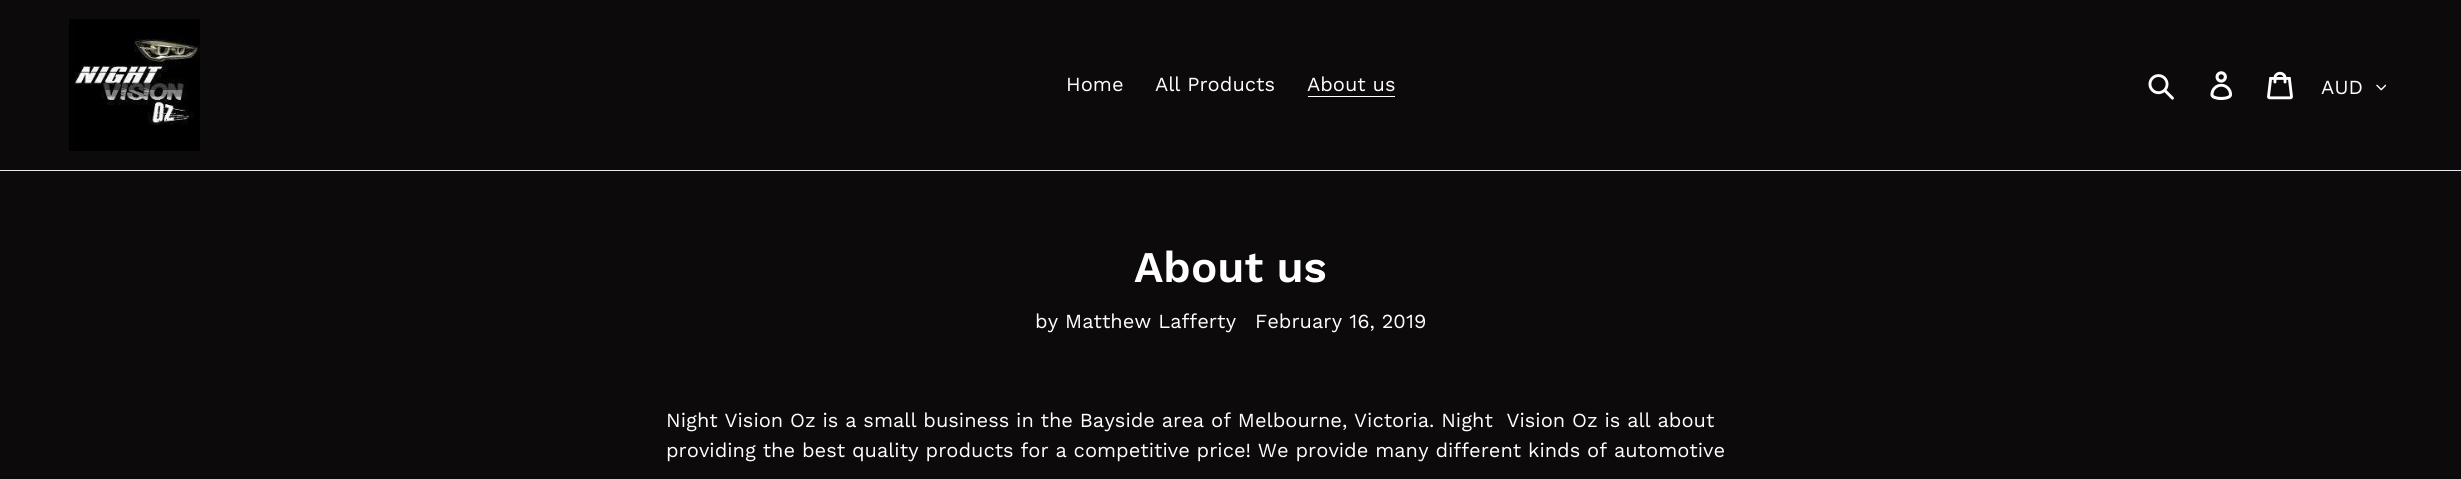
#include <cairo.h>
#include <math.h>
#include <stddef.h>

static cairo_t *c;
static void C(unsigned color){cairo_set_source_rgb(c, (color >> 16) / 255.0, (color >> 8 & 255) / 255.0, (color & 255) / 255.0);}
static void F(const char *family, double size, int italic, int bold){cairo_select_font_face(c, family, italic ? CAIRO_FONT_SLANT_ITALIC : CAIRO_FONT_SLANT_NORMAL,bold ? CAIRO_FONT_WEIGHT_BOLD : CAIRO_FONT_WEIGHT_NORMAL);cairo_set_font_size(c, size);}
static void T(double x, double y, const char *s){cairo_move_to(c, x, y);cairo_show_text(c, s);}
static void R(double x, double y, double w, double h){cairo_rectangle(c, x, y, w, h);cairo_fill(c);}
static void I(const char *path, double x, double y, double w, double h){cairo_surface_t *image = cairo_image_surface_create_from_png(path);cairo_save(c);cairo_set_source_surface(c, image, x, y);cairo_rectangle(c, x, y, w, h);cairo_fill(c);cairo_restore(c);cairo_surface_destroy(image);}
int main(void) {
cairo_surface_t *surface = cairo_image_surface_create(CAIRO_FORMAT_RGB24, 2461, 479);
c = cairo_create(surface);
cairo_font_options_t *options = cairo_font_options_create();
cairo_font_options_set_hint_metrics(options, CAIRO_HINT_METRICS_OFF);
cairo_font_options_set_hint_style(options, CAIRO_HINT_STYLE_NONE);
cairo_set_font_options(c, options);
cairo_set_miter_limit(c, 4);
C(0x0c0a0a);
cairo_paint(c);
C(0xe8e9eb);
R(0,170,2461,1);
I("1.png",69,19,131,132);
F("Work Sans",20,0,0);
C(0xffffff);
T(1066,91,"Home");
T(1155,91,"All Products");
T(1307,91,"About us");
R(1308,96,87,1);
I("2.png",2148,74,26,26);
I("3.png",2210,71,23,29);
I("4.png",2267,71,26,29);
T(2321,94,"AUD");
I("5.png",2376,84,10,7);
F("Work Sans SemiBold",43.75,0,0);
T(1134,282,"About us");
F("Work Sans",20,0,0);
T(1035,328,"by Matthew Lafferty");
T(1255,328,"February 16, 2019");
T(666,427,"Night Vision Oz is a small business in the Bayside area of Melbourne, Victoria. Night  Vision Oz is all about");
T(666,457,"providing the best quality products for a competitive price! We provide many different kinds of automotive");
cairo_surface_write_to_png(surface, "o.png");
cairo_font_options_destroy(options);
cairo_destroy(c);
cairo_surface_destroy(surface);
return 0;
}
